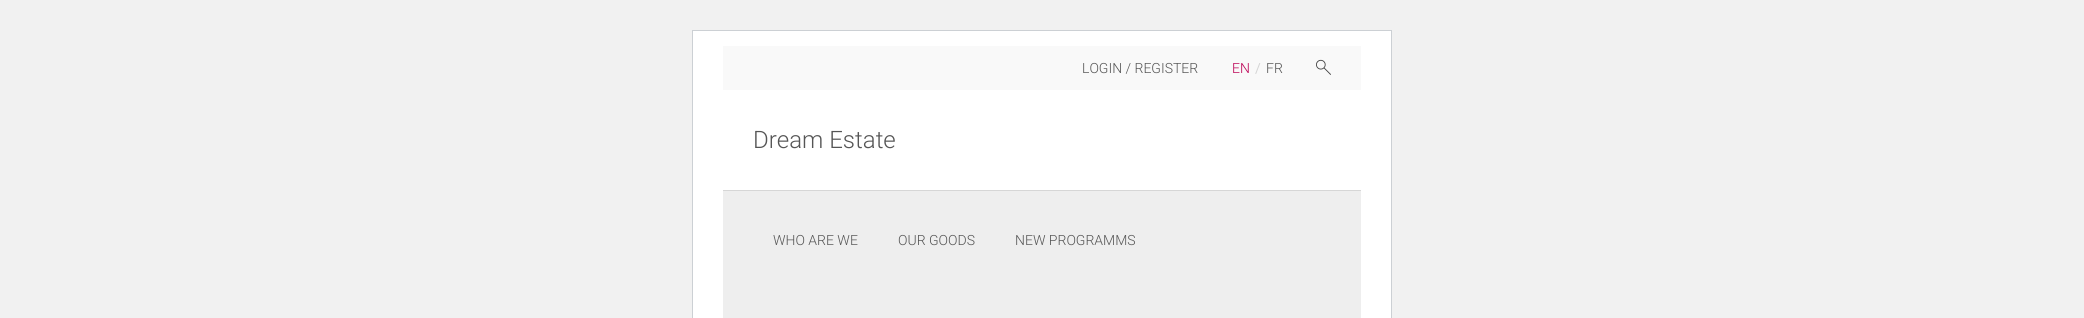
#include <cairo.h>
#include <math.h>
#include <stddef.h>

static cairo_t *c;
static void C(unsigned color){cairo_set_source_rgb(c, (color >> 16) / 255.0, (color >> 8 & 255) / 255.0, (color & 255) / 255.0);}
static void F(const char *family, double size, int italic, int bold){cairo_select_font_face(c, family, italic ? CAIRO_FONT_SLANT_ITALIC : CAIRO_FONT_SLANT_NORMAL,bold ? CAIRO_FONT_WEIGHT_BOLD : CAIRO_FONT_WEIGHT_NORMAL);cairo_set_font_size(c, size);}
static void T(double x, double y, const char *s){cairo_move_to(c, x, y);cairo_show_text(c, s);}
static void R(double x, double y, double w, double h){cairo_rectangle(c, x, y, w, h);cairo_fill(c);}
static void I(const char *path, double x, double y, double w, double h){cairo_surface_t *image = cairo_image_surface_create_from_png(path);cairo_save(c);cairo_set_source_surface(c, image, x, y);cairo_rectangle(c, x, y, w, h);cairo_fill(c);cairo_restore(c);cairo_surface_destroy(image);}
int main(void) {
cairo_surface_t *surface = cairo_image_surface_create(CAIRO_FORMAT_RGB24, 2084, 318);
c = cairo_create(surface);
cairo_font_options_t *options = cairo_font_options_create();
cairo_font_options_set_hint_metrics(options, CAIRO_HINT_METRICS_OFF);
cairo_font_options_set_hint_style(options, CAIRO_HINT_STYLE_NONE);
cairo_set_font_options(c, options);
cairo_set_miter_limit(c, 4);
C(0xf1f1f1);
cairo_paint(c);
C(0xffffff);
cairo_rectangle(c,692.5,30.5,699,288);
cairo_fill_preserve(c);
C(0xccd0d4);
cairo_set_line_width(c,1);
cairo_stroke(c);
C(0xf9f9f9);
R(723,46,638,44);
F("Roboto Light",14,0,0);
C(0x555555);
T(1082,73,"LOGIN / REGISTER");
C(0xbc0054);
T(1232,73,"EN");
F("Roboto",14,0,0);
C(0xd5d5d5);
T(1255,73,"/");
F("Roboto Light",14,0,0);
C(0x555555);
T(1266,73,"FR");
I("1.png",1316,59,15,16);
F("Roboto Light",24,0,0);
T(753,148,"Dream Estate");
C(0xeeeeee);
R(723,191,638,127);
F("Roboto Light",14,0,0);
C(0x555555);
T(773,245,"WHO ARE WE");
T(898,245,"OUR GOODS");
T(1015,245,"NEW PROGRAMMS");
C(0xd6d6d6);
R(723,190,638,1);
cairo_surface_write_to_png(surface, "o.png");
cairo_font_options_destroy(options);
cairo_destroy(c);
cairo_surface_destroy(surface);
return 0;
}
